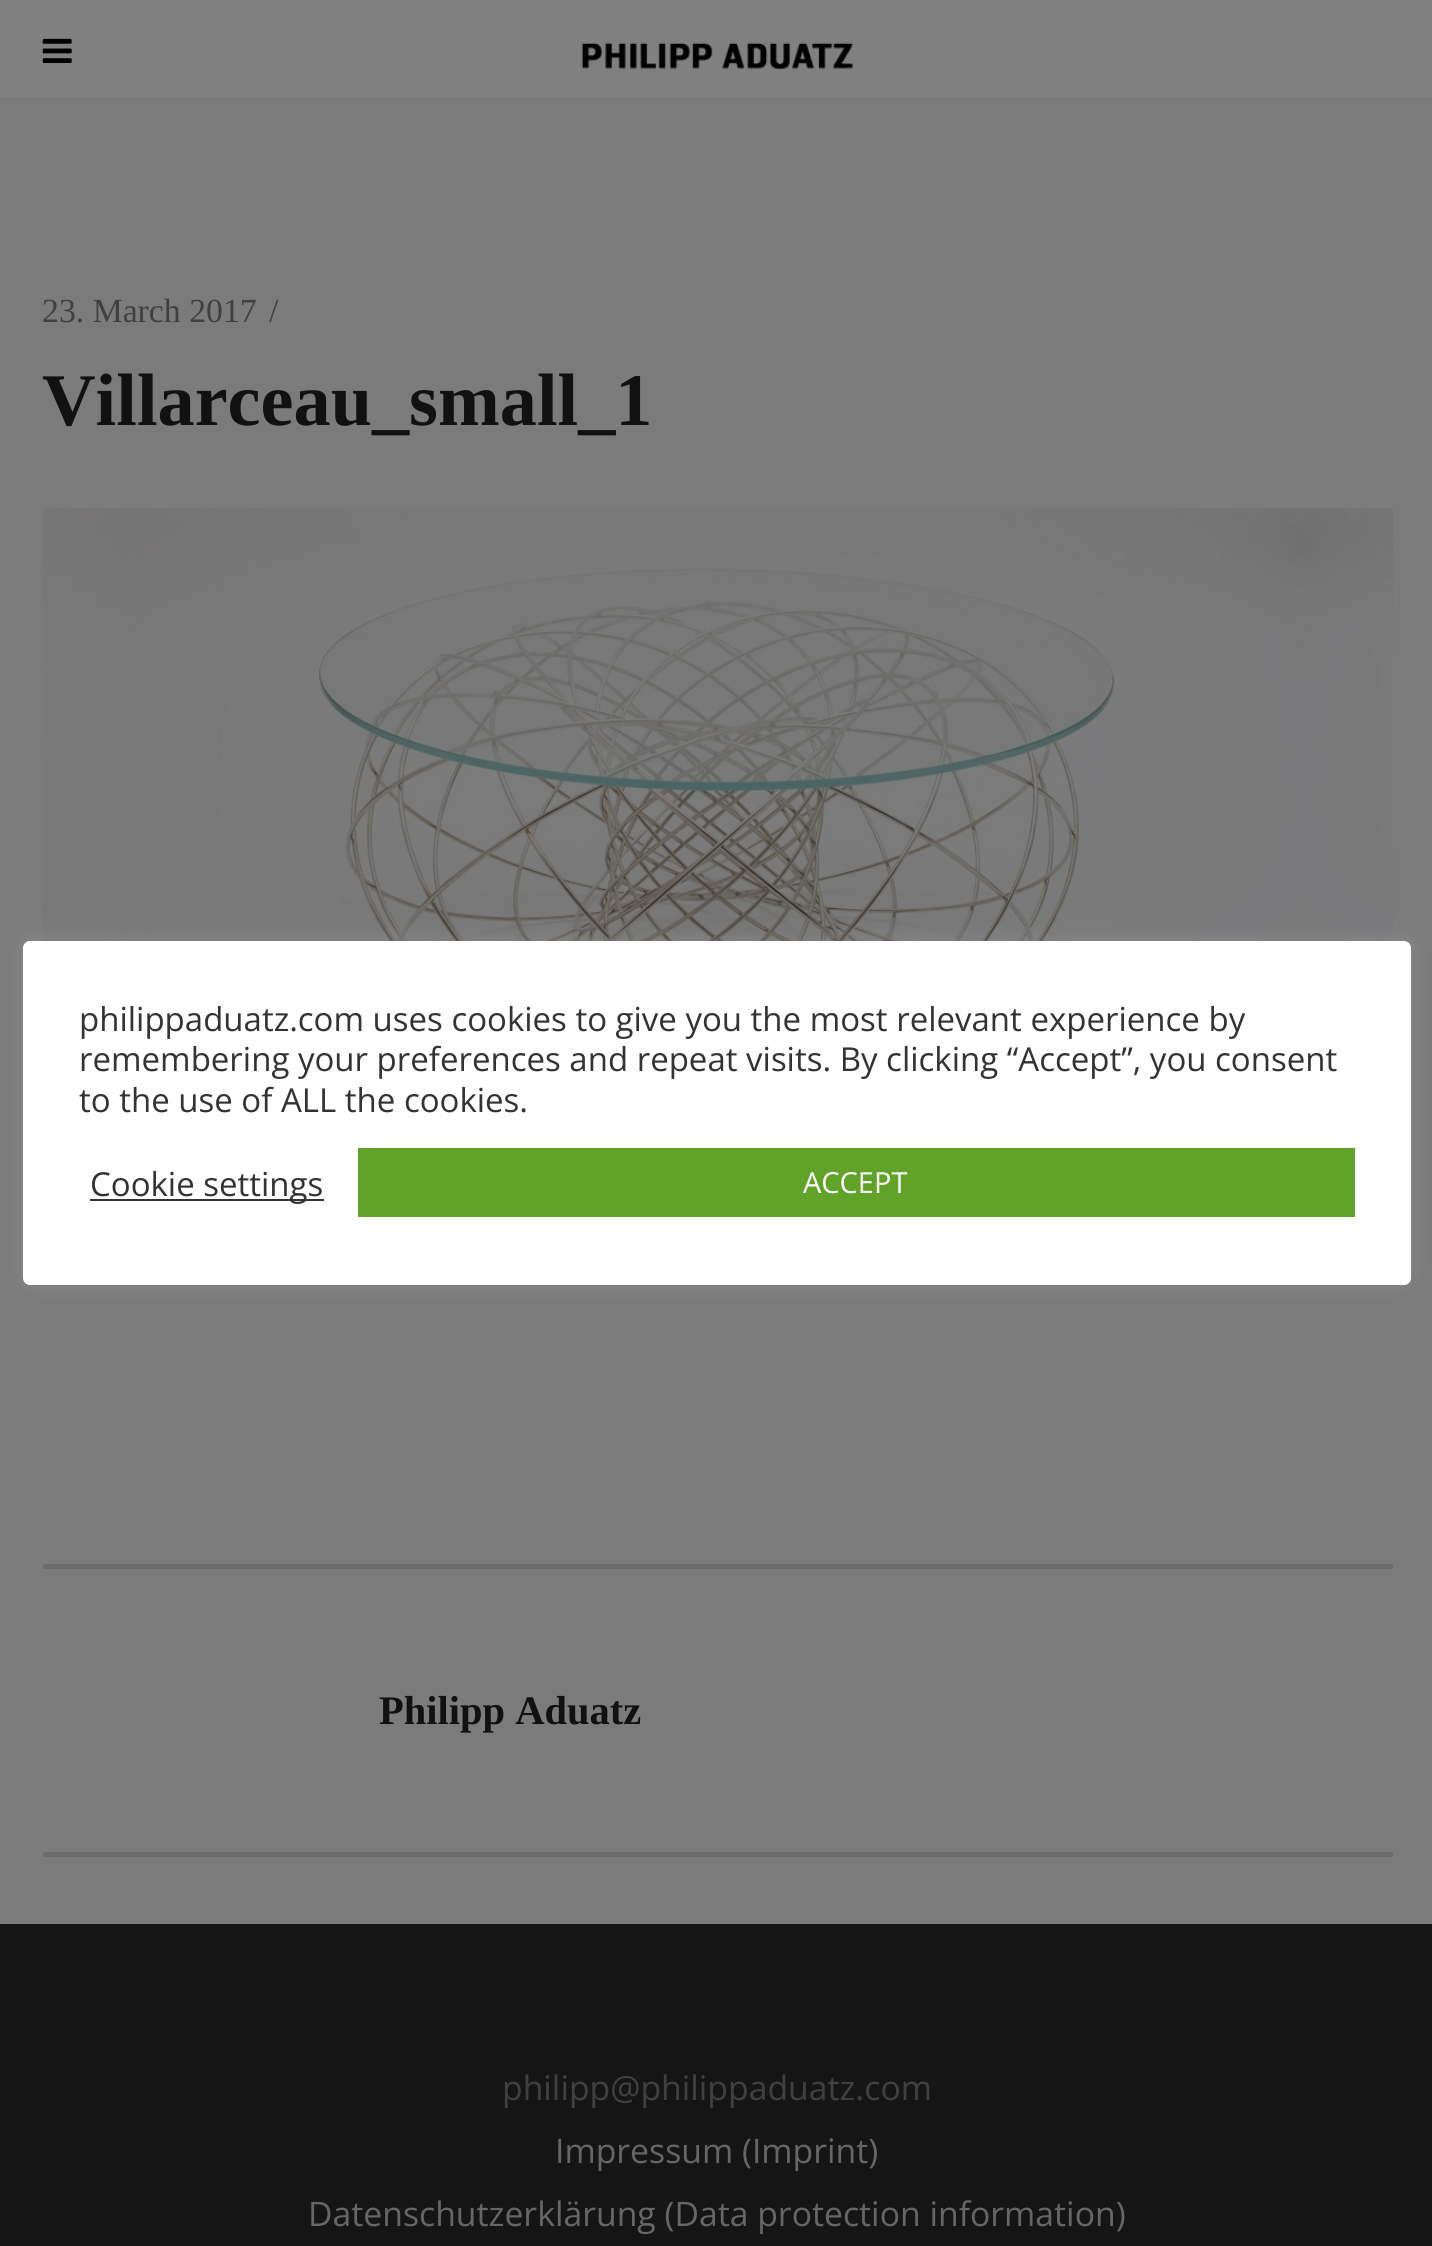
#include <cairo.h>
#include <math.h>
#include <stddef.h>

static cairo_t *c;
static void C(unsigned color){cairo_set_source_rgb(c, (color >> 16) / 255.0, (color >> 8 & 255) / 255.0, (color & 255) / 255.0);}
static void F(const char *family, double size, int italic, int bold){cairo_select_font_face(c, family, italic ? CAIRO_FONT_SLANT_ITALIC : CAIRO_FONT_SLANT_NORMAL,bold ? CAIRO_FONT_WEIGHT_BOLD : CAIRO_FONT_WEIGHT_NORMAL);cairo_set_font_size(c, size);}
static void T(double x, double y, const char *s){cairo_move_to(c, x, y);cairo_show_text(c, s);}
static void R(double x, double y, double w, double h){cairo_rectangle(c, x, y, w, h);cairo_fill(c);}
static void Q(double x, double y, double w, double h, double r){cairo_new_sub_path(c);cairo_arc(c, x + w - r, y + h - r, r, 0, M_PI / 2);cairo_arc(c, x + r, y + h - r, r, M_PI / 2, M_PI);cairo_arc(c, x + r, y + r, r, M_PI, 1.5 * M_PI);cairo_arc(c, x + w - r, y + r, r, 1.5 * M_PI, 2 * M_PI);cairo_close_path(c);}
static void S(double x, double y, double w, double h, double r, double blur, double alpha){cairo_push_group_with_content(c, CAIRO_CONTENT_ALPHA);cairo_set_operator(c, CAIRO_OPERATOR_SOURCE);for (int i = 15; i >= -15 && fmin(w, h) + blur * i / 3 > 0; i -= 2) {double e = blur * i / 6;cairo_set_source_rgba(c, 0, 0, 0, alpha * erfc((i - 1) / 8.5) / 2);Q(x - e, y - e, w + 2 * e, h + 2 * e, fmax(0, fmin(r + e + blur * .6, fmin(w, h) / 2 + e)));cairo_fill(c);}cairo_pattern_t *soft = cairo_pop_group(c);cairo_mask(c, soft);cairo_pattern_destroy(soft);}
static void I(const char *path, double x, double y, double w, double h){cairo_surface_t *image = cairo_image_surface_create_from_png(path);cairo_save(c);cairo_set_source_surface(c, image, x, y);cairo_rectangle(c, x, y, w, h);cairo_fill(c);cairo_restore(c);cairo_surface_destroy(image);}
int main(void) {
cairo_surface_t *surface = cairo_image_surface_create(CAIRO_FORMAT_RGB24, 1432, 2246);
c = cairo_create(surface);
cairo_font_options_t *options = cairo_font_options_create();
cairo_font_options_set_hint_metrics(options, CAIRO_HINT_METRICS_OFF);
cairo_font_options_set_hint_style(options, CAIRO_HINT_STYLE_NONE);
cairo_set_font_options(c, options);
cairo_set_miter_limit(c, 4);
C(0x7b7b7b);
cairo_paint(c);
C(0x808080);
R(0,0,1432,97);
I("1.png",42,38,30,25);
I("2.png",581,42,272,28);
C(0x6c6c6c);
R(43,1564,1350,5);
F("Liberation Serif",33.75,0,0);
C(0x404040);
T(42,322,"23. March 2017");
T(269,322,"/");
F("Liberation Serif",74.25,0,1);
C(0x111111);
T(42,425,"Villarceau_small_1");
I("3.png",43,508,1350,433);
C(0x6c6c6c);
R(43,1852,1350,5);
F("Liberation Serif",40.5,0,1);
C(0x111111);
T(379,1724,"Philipp Aduatz");
C(0x151515);
R(0,1924,1432,322);
F("Open Sans",33.75,0,0);
C(0x404040);
T(502,2100,"philipp@philippaduatz.com");
C(0x666666);
T(555,2163,"Impressum (Imprint)");
T(308,2226,"Datenschutzerklärung (Data protection information)");
C(0xacabab);
S(23,938,1388,345,7,11,.3);
C(0xffffff);
Q(23,941,1388,344,7);
cairo_fill(c);
F("Open Sans",33,0,0);
C(0x333333);
T(79,1031,"philippaduatz.com uses cookies to give you the most relevant experience by");
T(79,1071,"remembering your preferences and repeat visits. By clicking “Accept”, you consent");
T(79,1112,"to the use of ALL the cookies.");
R(90,1199,234,2);
T(90,1196,"Cookie settings");
C(0x61a229);
R(358,1148,997,69);
F("Open Sans",29,0,0);
C(0xffffff);
T(803,1193,"ACCEPT");
cairo_surface_write_to_png(surface, "o.png");
cairo_font_options_destroy(options);
cairo_destroy(c);
cairo_surface_destroy(surface);
return 0;
}
